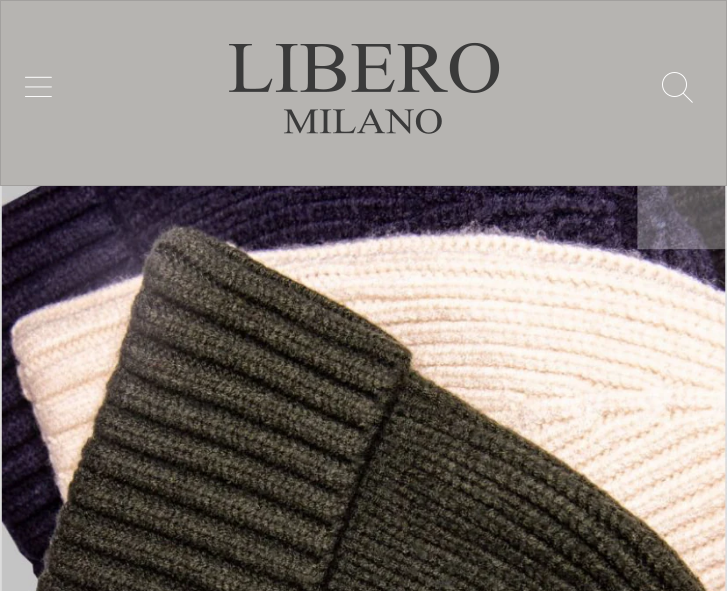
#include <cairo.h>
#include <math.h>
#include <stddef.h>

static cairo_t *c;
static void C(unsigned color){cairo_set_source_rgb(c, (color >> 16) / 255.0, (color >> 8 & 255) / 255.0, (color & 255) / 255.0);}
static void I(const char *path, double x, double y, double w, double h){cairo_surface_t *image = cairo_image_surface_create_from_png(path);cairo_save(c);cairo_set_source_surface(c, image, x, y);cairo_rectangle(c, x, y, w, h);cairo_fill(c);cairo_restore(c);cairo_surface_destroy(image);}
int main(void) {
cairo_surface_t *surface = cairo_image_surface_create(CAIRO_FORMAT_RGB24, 727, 591);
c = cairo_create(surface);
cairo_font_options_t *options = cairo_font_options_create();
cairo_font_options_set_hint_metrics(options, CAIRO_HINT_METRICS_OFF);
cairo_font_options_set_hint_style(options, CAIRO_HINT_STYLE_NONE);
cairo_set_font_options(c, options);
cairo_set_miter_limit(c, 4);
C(0xffffff);
cairo_paint(c);
C(0xb6b4b1);
cairo_rectangle(c,.5,.5,726,185);
cairo_fill_preserve(c);
C(0xa2a09e);
cairo_set_line_width(c,1);
cairo_stroke(c);
I("1.png",25,76,27,21);
I("2.png",229,42,271,92);
I("3.png",662,72,31,31);
I("4.png",0,186,727,405);
cairo_surface_write_to_png(surface, "o.png");
cairo_font_options_destroy(options);
cairo_destroy(c);
cairo_surface_destroy(surface);
return 0;
}
